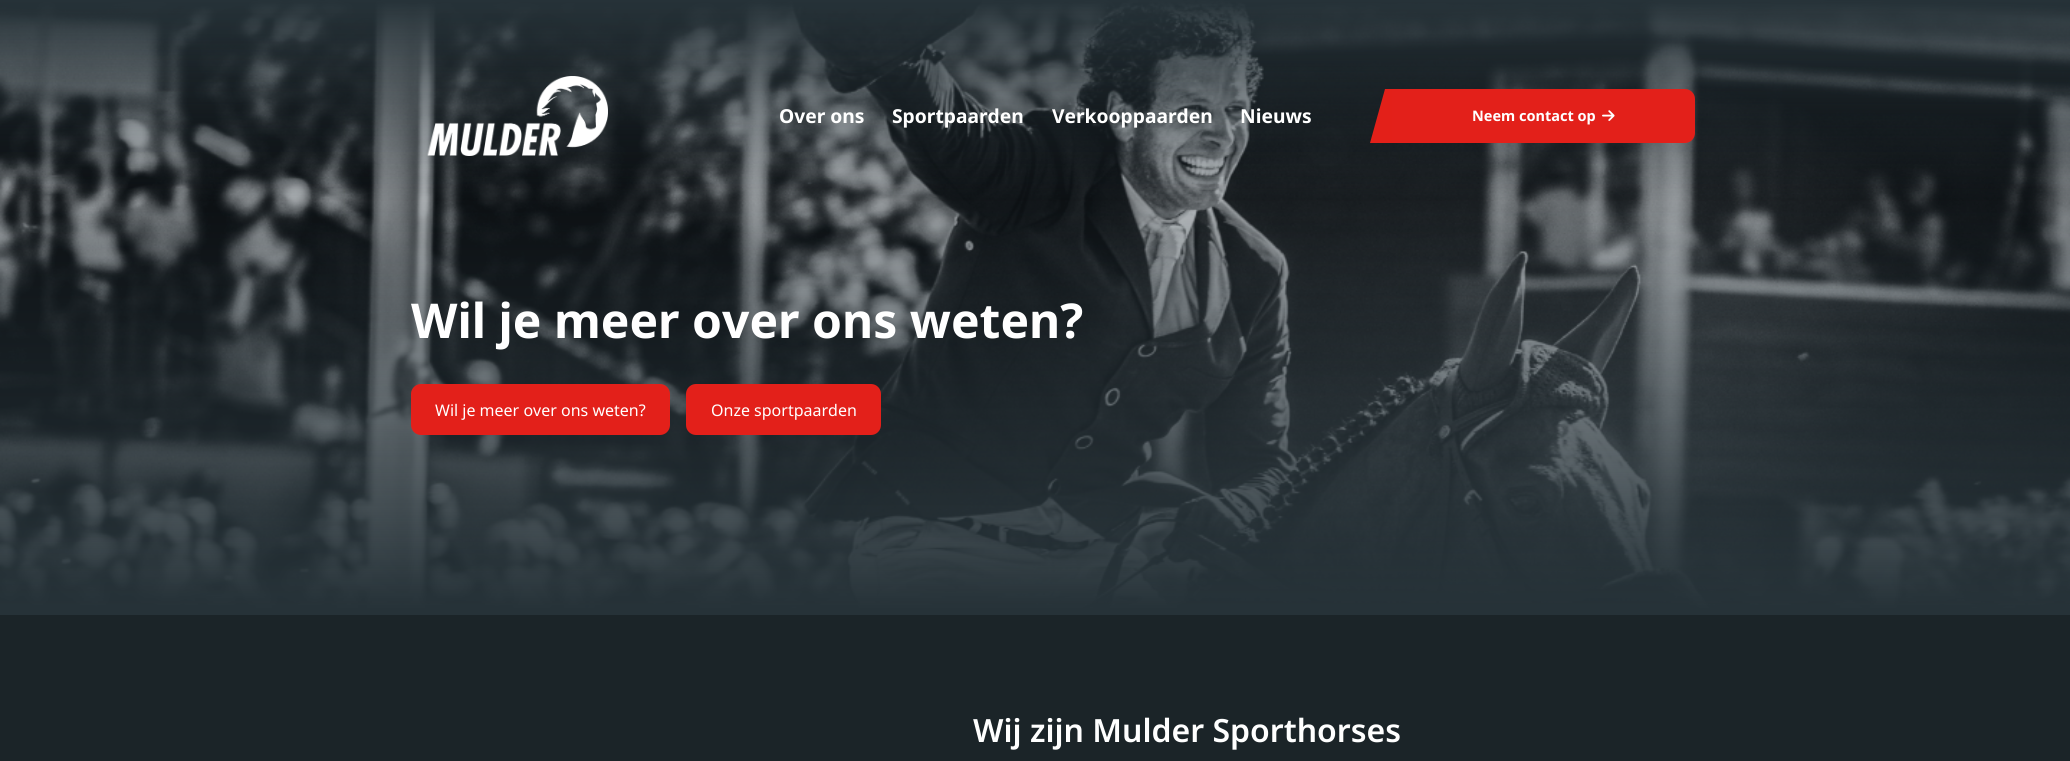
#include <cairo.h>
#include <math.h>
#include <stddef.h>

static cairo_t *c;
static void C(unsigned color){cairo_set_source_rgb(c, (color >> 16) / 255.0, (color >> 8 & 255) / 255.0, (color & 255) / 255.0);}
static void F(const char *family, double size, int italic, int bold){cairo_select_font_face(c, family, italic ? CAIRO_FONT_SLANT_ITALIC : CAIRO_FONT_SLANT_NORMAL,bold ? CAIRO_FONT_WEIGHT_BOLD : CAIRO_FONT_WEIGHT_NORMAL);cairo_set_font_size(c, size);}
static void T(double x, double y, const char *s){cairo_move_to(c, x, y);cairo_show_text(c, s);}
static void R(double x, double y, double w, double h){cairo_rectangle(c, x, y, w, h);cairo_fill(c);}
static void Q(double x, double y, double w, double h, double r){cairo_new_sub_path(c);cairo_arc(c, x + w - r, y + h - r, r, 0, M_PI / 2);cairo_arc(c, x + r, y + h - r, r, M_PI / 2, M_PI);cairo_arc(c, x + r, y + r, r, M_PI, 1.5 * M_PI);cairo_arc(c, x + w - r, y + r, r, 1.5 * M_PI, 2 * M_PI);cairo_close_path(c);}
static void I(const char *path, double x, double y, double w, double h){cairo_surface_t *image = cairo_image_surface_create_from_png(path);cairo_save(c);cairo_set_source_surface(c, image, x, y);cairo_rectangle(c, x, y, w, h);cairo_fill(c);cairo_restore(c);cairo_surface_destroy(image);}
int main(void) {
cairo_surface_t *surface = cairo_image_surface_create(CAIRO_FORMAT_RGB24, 2070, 761);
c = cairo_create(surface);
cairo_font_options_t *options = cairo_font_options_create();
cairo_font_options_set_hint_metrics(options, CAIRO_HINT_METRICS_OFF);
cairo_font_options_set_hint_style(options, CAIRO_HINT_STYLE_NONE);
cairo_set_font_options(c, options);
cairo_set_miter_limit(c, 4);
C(0x263238);
cairo_paint(c);
I("3.png",0,0,2070,609);
I("1.png",427,76,181,80);
F("Noto Sans",19.25,0,1);
C(0xffffff);
T(779,123,"Over ons");
T(892,123,"Sportpaarden");
T(1052,123,"Verkooppaarden");
T(1240,123,"Nieuws");
C(0xe32019);
cairo_new_path(c);
cairo_move_to(c,1385,89);
cairo_line_to(c,1415,89);
cairo_line_to(c,1400,143);
cairo_line_to(c,1370,143);
cairo_close_path(c);
cairo_fill(c);
C(0xe3201a);
cairo_new_path(c);
cairo_move_to(c,1392,89);
cairo_line_to(c,1685,89);
cairo_curve_to(c,1690.5,89,1695,93.5,1695,99);
cairo_line_to(c,1695,133);
cairo_curve_to(c,1695,138.5,1690.5,143,1685,143);
cairo_line_to(c,1392,143);
cairo_close_path(c);
cairo_fill(c);
F("Noto Sans",14.5,0,1);
C(0xffffff);
T(1472,121,"Neem contact op");
I("2.png",1602,110,13,11);
F("Noto Sans",48,0,1);
T(411,338,"Wil je meer over ons weten?");
C(0xe3201a);
Q(412,385,257,49,9);
cairo_fill_preserve(c);
cairo_stroke(c);
F("Noto Sans",16,0,0);
C(0xffffff);
T(435,416,"Wil je meer over ons weten?");
C(0xe3201a);
Q(687,385,193,49,9);
cairo_fill_preserve(c);
cairo_stroke(c);
C(0xffffff);
T(711,416,"Onze sportpaarden");
C(0x1b2428);
R(0,615,2070,146);
F("Noto Sans SemiBold",32,0,0);
C(0xffffff);
T(973,742,"Wij zijn Mulder Sporthorses");
cairo_surface_write_to_png(surface, "o.png");
cairo_font_options_destroy(options);
cairo_destroy(c);
cairo_surface_destroy(surface);
return 0;
}
